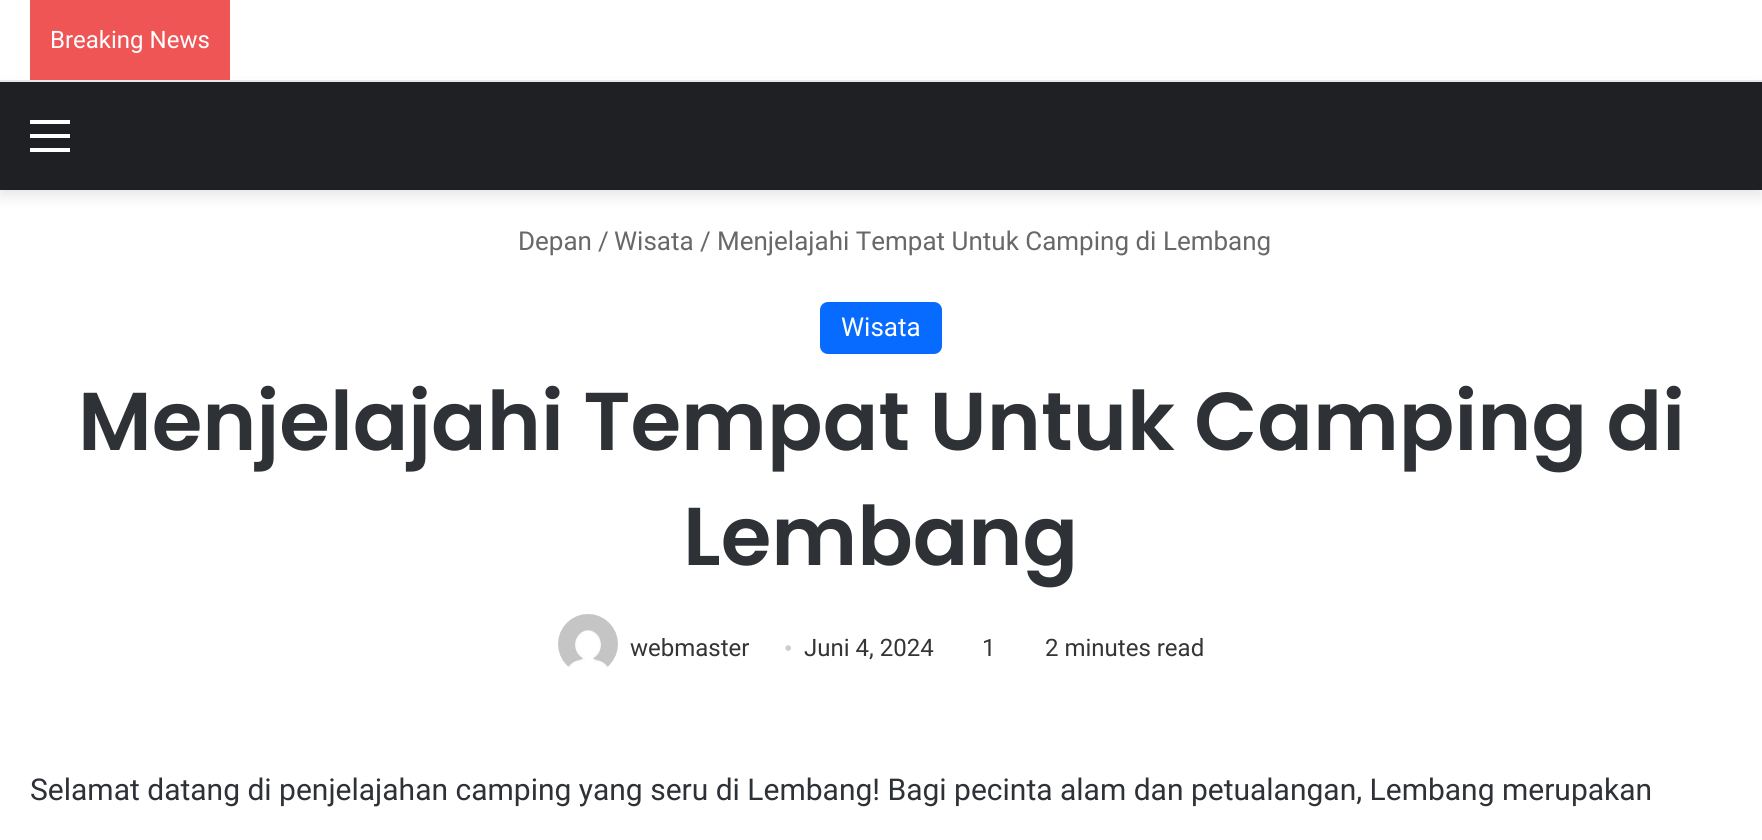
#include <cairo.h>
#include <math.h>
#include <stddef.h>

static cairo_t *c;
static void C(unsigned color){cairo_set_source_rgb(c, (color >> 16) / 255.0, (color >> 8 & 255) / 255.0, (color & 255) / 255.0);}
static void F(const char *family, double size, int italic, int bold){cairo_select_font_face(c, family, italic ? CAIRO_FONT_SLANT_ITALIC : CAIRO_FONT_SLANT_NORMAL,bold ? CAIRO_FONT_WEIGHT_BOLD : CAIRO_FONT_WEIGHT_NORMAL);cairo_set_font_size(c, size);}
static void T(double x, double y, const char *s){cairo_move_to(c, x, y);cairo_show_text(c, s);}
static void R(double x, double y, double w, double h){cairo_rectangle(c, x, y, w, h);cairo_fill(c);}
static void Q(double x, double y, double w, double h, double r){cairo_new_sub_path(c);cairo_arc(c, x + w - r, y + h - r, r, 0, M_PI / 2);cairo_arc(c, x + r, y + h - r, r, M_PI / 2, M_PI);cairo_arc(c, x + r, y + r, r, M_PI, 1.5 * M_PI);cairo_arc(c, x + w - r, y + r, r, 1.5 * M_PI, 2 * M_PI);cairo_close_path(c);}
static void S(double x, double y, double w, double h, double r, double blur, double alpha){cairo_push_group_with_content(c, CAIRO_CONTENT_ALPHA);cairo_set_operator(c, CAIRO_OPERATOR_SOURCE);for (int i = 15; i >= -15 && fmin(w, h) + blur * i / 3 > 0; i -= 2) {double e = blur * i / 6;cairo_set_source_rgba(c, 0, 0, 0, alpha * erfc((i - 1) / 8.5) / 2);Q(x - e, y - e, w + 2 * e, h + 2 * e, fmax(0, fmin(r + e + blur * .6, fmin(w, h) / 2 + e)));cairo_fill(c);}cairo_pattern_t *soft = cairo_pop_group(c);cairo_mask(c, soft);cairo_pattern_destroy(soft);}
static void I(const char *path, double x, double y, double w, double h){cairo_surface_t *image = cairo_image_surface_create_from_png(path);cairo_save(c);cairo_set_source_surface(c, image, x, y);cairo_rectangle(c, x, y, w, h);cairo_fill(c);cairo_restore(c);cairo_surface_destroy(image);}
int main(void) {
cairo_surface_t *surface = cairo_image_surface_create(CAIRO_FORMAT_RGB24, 1762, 840);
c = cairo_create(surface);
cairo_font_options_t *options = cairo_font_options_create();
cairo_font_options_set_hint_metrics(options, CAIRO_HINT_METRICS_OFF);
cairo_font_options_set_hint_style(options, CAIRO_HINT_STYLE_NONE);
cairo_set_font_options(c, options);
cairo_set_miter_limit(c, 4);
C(0xffffff);
cairo_paint(c);
C(0x000000);
S(0,88,1762,108,0,7,.1);
C(0xffffff);
R(9,79,1744,1);
C(0xe6e6e6);
R(0,80,1762,2);
C(0xf05555);
R(30,0,200,80);
F("Roboto",24,0,0);
C(0xffffff);
T(50,48,"Breaking News");
C(0x1f2024);
R(0,82,1762,108);
C(0xffffff);
R(30,134,40,4);
R(30,120,40,4);
R(30,148,40,4);
F("Roboto",26,0,0);
C(0x686868);
T(518,250,"Depan");
T(598,250,"/");
T(614,250,"Wisata");
T(700,250,"/");
T(717,250,"Menjelajahi Tempat Untuk Camping di Lembang");
C(0x086bff);
Q(820,302,122,52,8);
cairo_fill(c);
C(0xffffff);
T(841,336,"Wisata");
F("Poppins SemiBold",82,0,0);
C(0x2e3136);
T(78,450,"Menjelajahi Tempat Untuk Camping di");
T(683,565,"Lembang");
I("1.png",558,614,60,53);
F("Roboto",24,0,0);
C(0x353535);
T(630,656,"webmaster");
F("Liberation Serif",24,0,0);
C(0xcdcdcd);
T(784,656,"•");
F("Roboto",24,0,0);
C(0x353535);
T(804,656,"Juni 4, 2024");
T(982,656,"1");
T(1045,656,"2 minutes read");
F("Roboto",30,0,0);
C(0x2e3136);
T(30,800,"Selamat datang di penjelajahan camping yang seru di Lembang! Bagi pecinta alam dan petualangan, Lembang merupakan");
cairo_surface_write_to_png(surface, "o.png");
cairo_font_options_destroy(options);
cairo_destroy(c);
cairo_surface_destroy(surface);
return 0;
}
